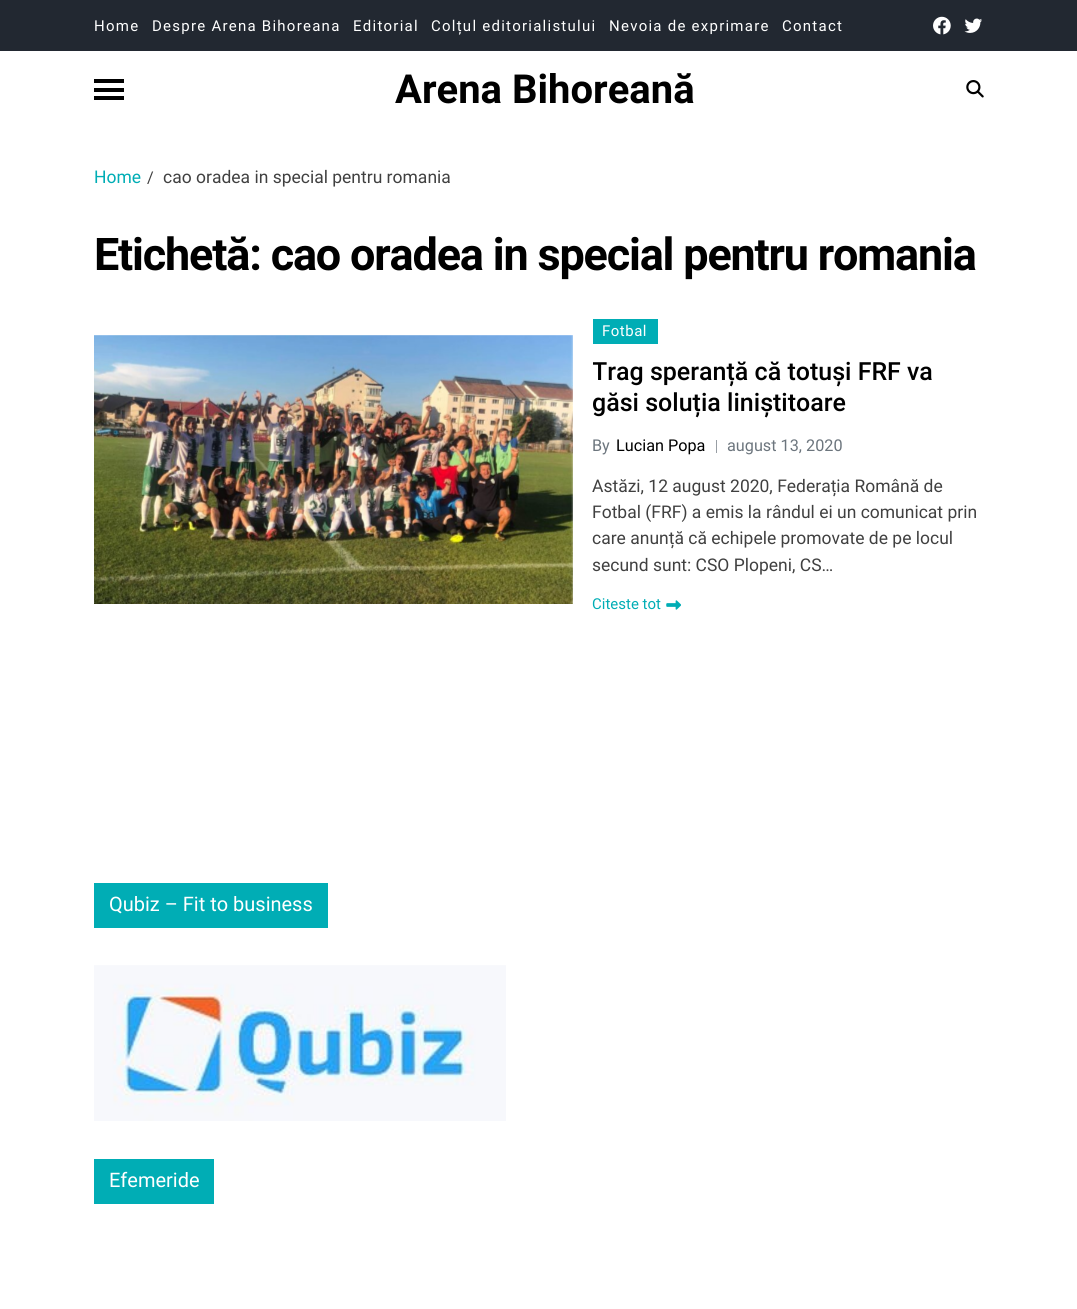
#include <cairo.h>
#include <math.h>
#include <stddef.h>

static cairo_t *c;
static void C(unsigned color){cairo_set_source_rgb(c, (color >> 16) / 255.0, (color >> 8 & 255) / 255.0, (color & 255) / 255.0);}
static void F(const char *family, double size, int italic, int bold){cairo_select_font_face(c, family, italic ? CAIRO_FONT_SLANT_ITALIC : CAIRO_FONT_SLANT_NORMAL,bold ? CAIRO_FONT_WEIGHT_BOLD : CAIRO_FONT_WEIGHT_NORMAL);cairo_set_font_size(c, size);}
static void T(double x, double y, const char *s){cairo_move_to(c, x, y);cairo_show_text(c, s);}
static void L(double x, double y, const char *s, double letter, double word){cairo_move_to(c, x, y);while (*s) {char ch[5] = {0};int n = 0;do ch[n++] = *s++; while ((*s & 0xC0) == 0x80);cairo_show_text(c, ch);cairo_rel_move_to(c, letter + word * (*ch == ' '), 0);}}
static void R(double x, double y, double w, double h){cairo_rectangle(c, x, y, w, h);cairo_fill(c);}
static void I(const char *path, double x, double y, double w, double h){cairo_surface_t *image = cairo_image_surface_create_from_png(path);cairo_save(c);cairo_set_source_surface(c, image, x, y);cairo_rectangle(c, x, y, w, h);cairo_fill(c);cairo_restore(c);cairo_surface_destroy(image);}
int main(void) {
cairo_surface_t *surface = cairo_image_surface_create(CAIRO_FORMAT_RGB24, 1077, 1309);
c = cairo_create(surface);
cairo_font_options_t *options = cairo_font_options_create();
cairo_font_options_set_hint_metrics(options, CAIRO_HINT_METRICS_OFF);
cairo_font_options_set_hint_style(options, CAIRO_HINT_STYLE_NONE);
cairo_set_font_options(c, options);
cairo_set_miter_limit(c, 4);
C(0xffffff);
cairo_paint(c);
C(0x222831);
R(0,0,1077,51);
F("Roboto",15,0,0);
C(0xffffff);
L(94,31,"Home",1.25,0);
L(152,31,"Despre Arena Bihoreana",1.25,0);
L(353,31,"Editorial",1.25,0);
L(431,31,"Colțul editorialistului",1.25,0);
L(609,31,"Nevoia de exprimare",1.25,0);
L(782,31,"Contact",1.25,0);
I("1.png",933,16,18,19);
I("2.png",964,18,18,15);
C(0x000000);
R(94,79,30,4);
R(94,88,30,4);
R(94,96,30,4);
F("Roboto",40,0,1);
T(395,103,"Arena Bihoreană");
I("3.png",966,80,18,18);
F("Roboto",17.5,0,0);
C(0x00adb5);
T(94,183,"Home");
F("Roboto",16.25,0,0);
C(0x404040);
T(147,183,"/");
F("Roboto",17.5,0,0);
T(163,183,"cao oradea in special pentru romania");
F("Roboto",45,0,1);
C(0x000000);
L(94,270,"Etichetă: cao oradea in special pentru romania",-1.2,0);
I("4.png",94,335,479,269);
C(0x00adb5);
R(593,319,65,25);
F("Roboto",15,0,0);
C(0xffffff);
L(602,336,"Fotbal",.5,0);
cairo_save(c);
cairo_rectangle(c,593,356,391,63);
cairo_clip(c);
F("Roboto Medium",25,0,0);
C(0x000000);
T(592,380,"Trag speranță că totuși FRF va");
cairo_restore(c);
F("Roboto Medium",25,0,0);
C(0x000000);
T(592,411,"găsi soluția liniștitoare");
F("Roboto",16.25,0,0);
C(0x6c757d);
T(592,451,"By");
C(0x000000);
T(616,451,"Lucian Popa");
C(0x989ea4);
R(716,440,1,13);
C(0x6c757d);
T(727,451,"august 13, 2020");
F("Roboto",17.5,0,0);
C(0x404040);
T(592,492,"Astăzi, 12 august 2020, Federația Română de");
T(592,518,"Fotbal (FRF) a emis la rândul ei un comunicat prin");
T(592,544,"care anunță că echipele promovate de pe locul");
T(592,571,"secund sunt: CSO Plopeni, CS…");
F("Roboto",15,0,0);
C(0x00adb5);
T(592,609,"Citeste tot");
I("5.png",666,600,15,10);
R(94,883,234,45);
F("Roboto",20,0,0);
C(0xffffff);
T(109,911,"Qubiz – Fit to business");
I("6.png",94,965,412,156);
C(0x00adb5);
R(94,1159,120,45);
C(0xffffff);
T(109,1187,"Efemeride");
cairo_surface_write_to_png(surface, "o.png");
cairo_font_options_destroy(options);
cairo_destroy(c);
cairo_surface_destroy(surface);
return 0;
}
